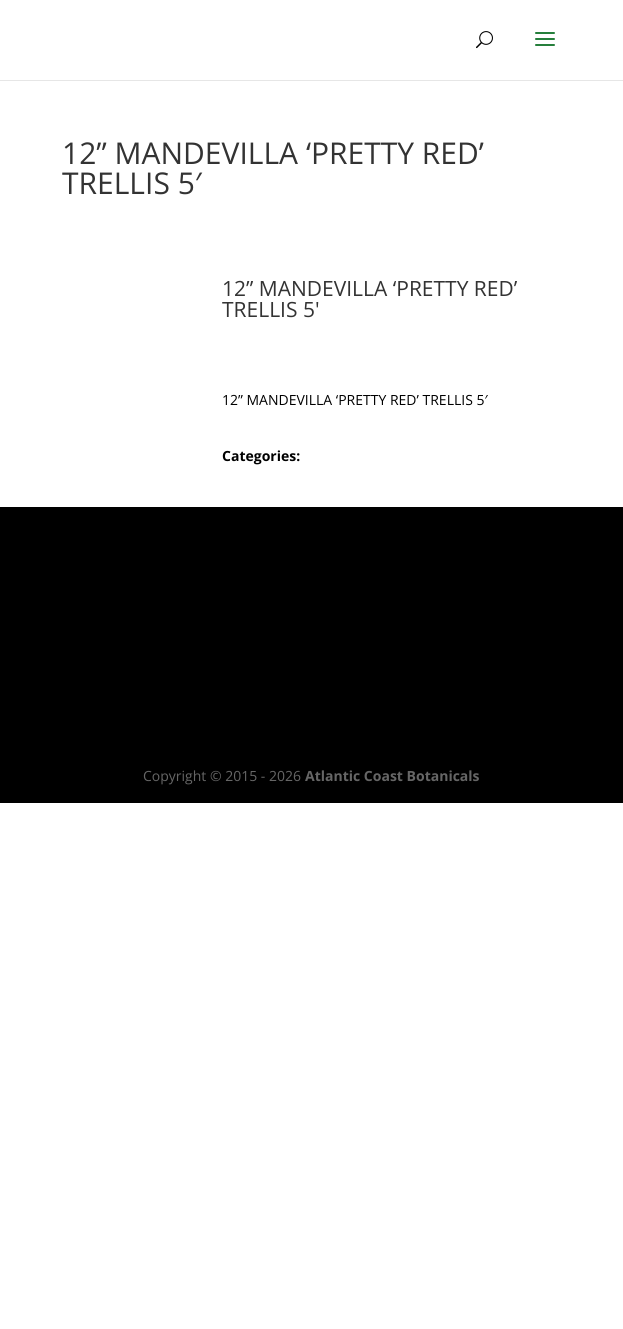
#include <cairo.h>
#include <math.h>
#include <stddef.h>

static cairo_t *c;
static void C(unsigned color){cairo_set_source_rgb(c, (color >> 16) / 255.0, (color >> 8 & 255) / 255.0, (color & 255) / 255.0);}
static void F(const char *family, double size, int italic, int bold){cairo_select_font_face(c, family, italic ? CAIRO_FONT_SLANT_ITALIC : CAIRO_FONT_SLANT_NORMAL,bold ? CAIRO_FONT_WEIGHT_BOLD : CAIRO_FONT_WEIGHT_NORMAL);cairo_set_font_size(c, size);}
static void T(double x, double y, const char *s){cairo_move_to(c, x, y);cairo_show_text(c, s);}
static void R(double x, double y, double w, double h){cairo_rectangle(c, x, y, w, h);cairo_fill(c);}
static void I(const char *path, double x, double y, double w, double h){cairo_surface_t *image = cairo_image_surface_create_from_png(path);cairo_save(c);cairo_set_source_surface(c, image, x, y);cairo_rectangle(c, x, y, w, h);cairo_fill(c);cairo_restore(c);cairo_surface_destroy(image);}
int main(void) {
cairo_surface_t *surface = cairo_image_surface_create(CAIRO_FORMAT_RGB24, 623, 1329);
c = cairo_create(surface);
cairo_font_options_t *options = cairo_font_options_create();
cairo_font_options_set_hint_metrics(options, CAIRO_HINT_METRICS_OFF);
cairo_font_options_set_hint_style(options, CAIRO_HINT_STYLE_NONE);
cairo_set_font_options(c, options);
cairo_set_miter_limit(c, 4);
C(0xffffff);
cairo_paint(c);
C(0xe6e6e6);
R(0,80,623,1);
I("1.png",476,31,17,18);
I("2.png",535,32,20,14);
F("Open Sans",30,0,0);
C(0x333333);
T(62,164,"12” MANDEVILLA ‘PRETTY RED’");
T(62,194,"TRELLIS 5′");
F("Open Sans",21,0,0);
T(222,296,"12” MANDEVILLA ‘PRETTY RED’");
T(222,317,"TRELLIS 5'");
F("Open Sans",14,0,0);
C(0x000000);
T(222,405,"12” MANDEVILLA ‘PRETTY RED’ TRELLIS 5′");
F("Open Sans",14,0,1);
T(222,461,"Categories:");
R(0,507,623,296);
F("Open Sans",14,0,0);
C(0x666666);
T(143,781,"Copyright © 2015 - 2026");
F("Open Sans",14,0,1);
T(305,781,"Atlantic Coast Botanicals");
cairo_surface_write_to_png(surface, "o.png");
cairo_font_options_destroy(options);
cairo_destroy(c);
cairo_surface_destroy(surface);
return 0;
}
